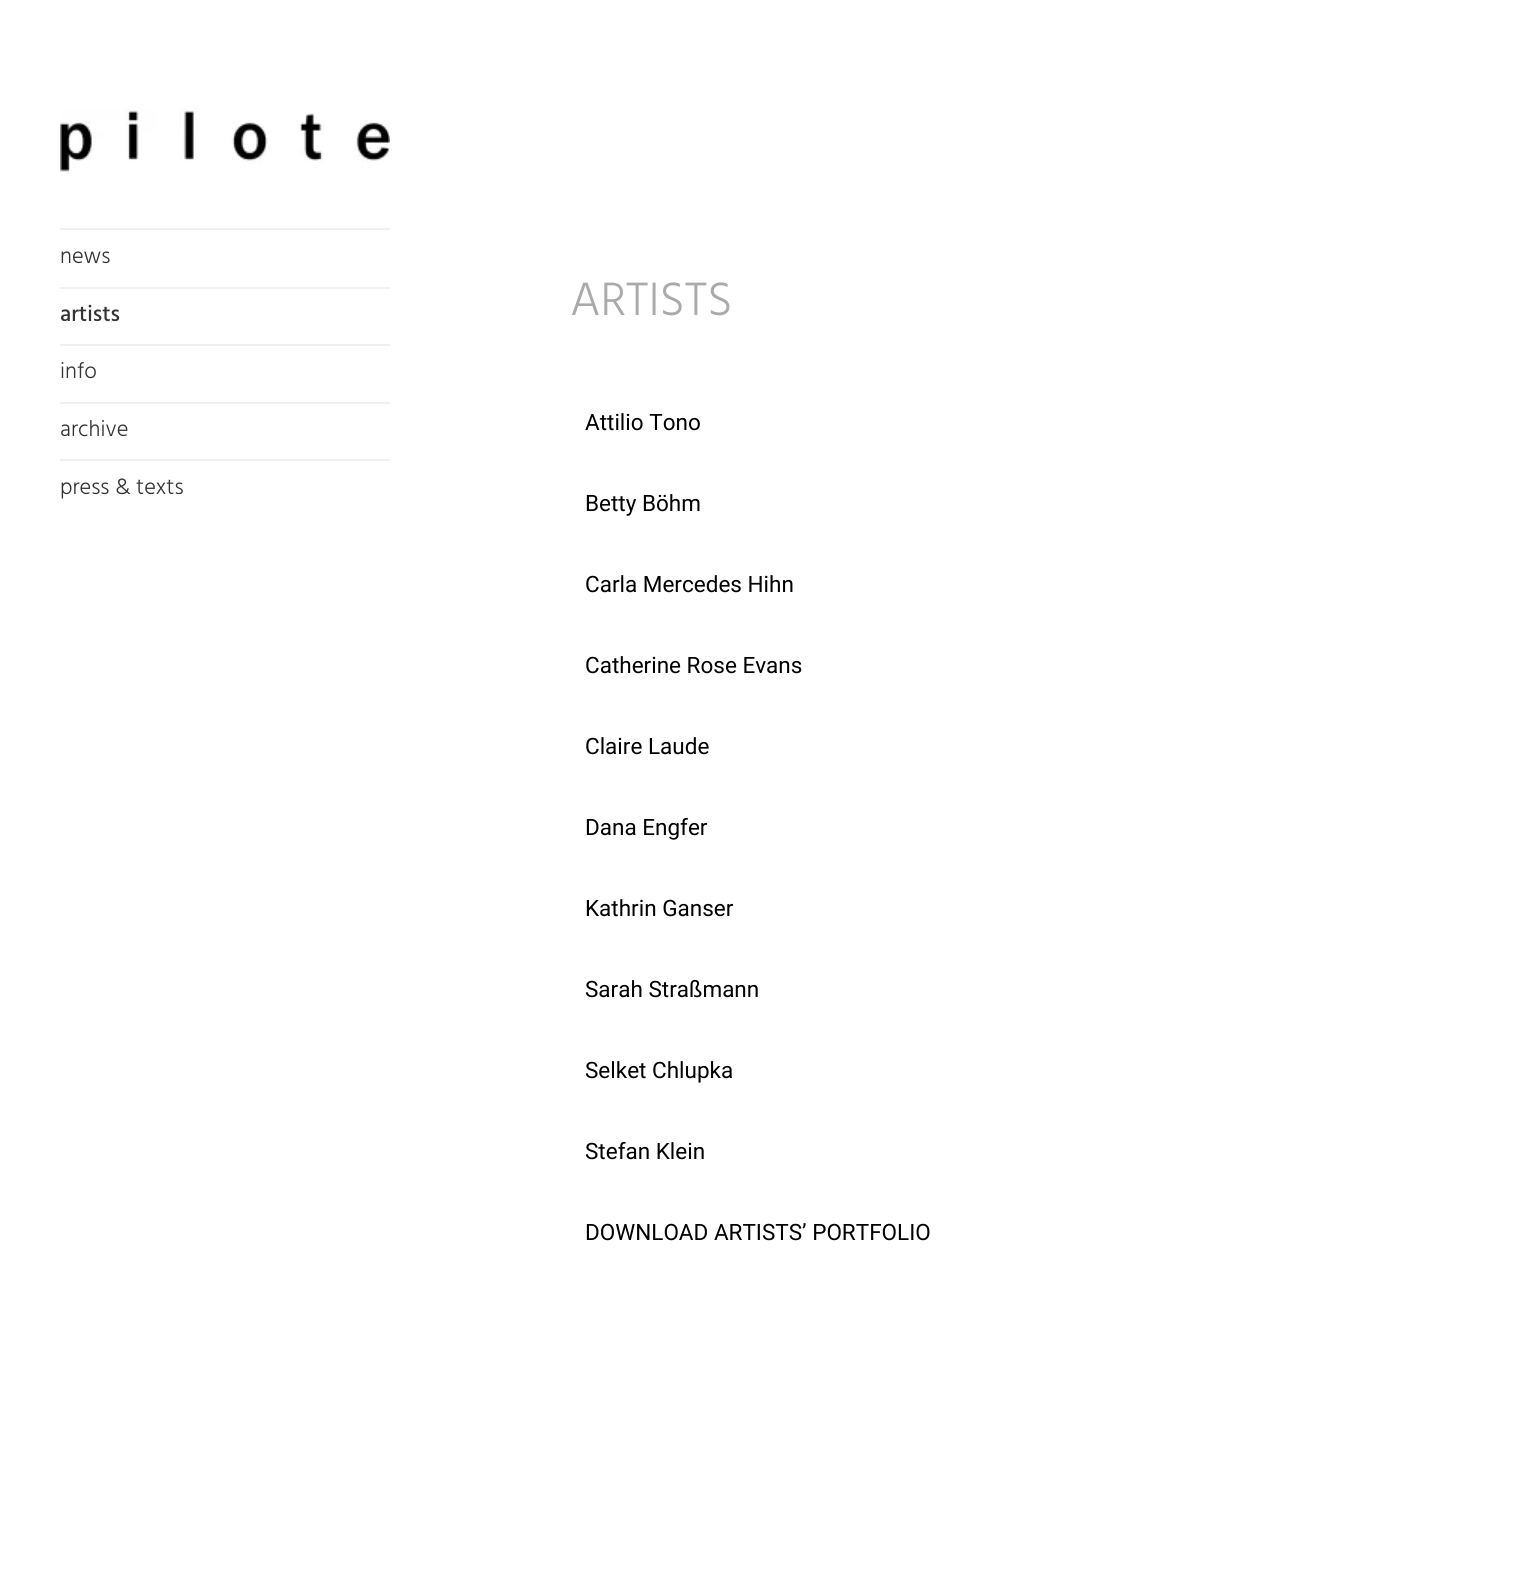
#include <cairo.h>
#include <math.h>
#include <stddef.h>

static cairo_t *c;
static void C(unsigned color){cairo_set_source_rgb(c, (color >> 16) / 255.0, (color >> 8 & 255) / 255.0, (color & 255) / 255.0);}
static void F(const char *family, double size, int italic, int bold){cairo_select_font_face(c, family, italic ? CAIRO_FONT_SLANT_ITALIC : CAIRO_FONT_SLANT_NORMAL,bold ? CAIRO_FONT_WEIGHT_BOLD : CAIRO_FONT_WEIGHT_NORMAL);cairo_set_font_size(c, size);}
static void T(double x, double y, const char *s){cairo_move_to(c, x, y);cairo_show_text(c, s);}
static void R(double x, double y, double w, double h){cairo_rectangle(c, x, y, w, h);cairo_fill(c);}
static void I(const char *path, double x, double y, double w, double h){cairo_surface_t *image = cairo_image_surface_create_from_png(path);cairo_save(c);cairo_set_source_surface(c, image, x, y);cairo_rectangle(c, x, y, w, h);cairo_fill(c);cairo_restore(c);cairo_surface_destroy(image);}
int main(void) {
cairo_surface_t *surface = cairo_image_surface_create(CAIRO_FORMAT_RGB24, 1523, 1577);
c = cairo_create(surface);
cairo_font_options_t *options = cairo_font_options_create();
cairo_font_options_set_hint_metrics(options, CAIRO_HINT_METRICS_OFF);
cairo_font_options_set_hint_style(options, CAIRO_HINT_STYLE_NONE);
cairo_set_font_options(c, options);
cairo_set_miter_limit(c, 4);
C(0xffffff);
cairo_paint(c);
I("1.png",60,108,330,66);
C(0xf0f0f0);
R(60,228,330,2);
F("Hind Light",22.5,0,0);
C(0x333333);
T(60,263,"news");
C(0xf0f0f0);
R(60,287,330,2);
F("Hind Medium",22.5,0,0);
C(0x333333);
T(60,321,"artists");
C(0xf0f0f0);
R(60,344,330,2);
F("Hind Light",22.5,0,0);
C(0x333333);
T(60,378,"info");
C(0xf0f0f0);
R(60,402,330,2);
C(0x333333);
T(60,436,"archive");
C(0xf0f0f0);
R(60,459,330,2);
C(0x333333);
T(60,494,"press & texts");
F("Hind Light",48,0,0);
C(0xaaaaaa);
T(570,315,"ARTISTS");
F("Roboto",22.5,0,0);
C(0x000000);
T(585,430,"Attilio Tono");
T(585,511,"Betty Böhm");
T(585,592,"Carla Mercedes Hihn");
T(585,673,"Catherine Rose Evans");
T(585,754,"Claire Laude");
T(585,835,"Dana Engfer");
T(585,916,"Kathrin Ganser");
T(585,997,"Sarah Straßmann");
T(585,1078,"Selket Chlupka");
T(585,1159,"Stefan Klein");
T(585,1240,"DOWNLOAD ARTISTS’ PORTFOLIO");
cairo_surface_write_to_png(surface, "o.png");
cairo_font_options_destroy(options);
cairo_destroy(c);
cairo_surface_destroy(surface);
return 0;
}
